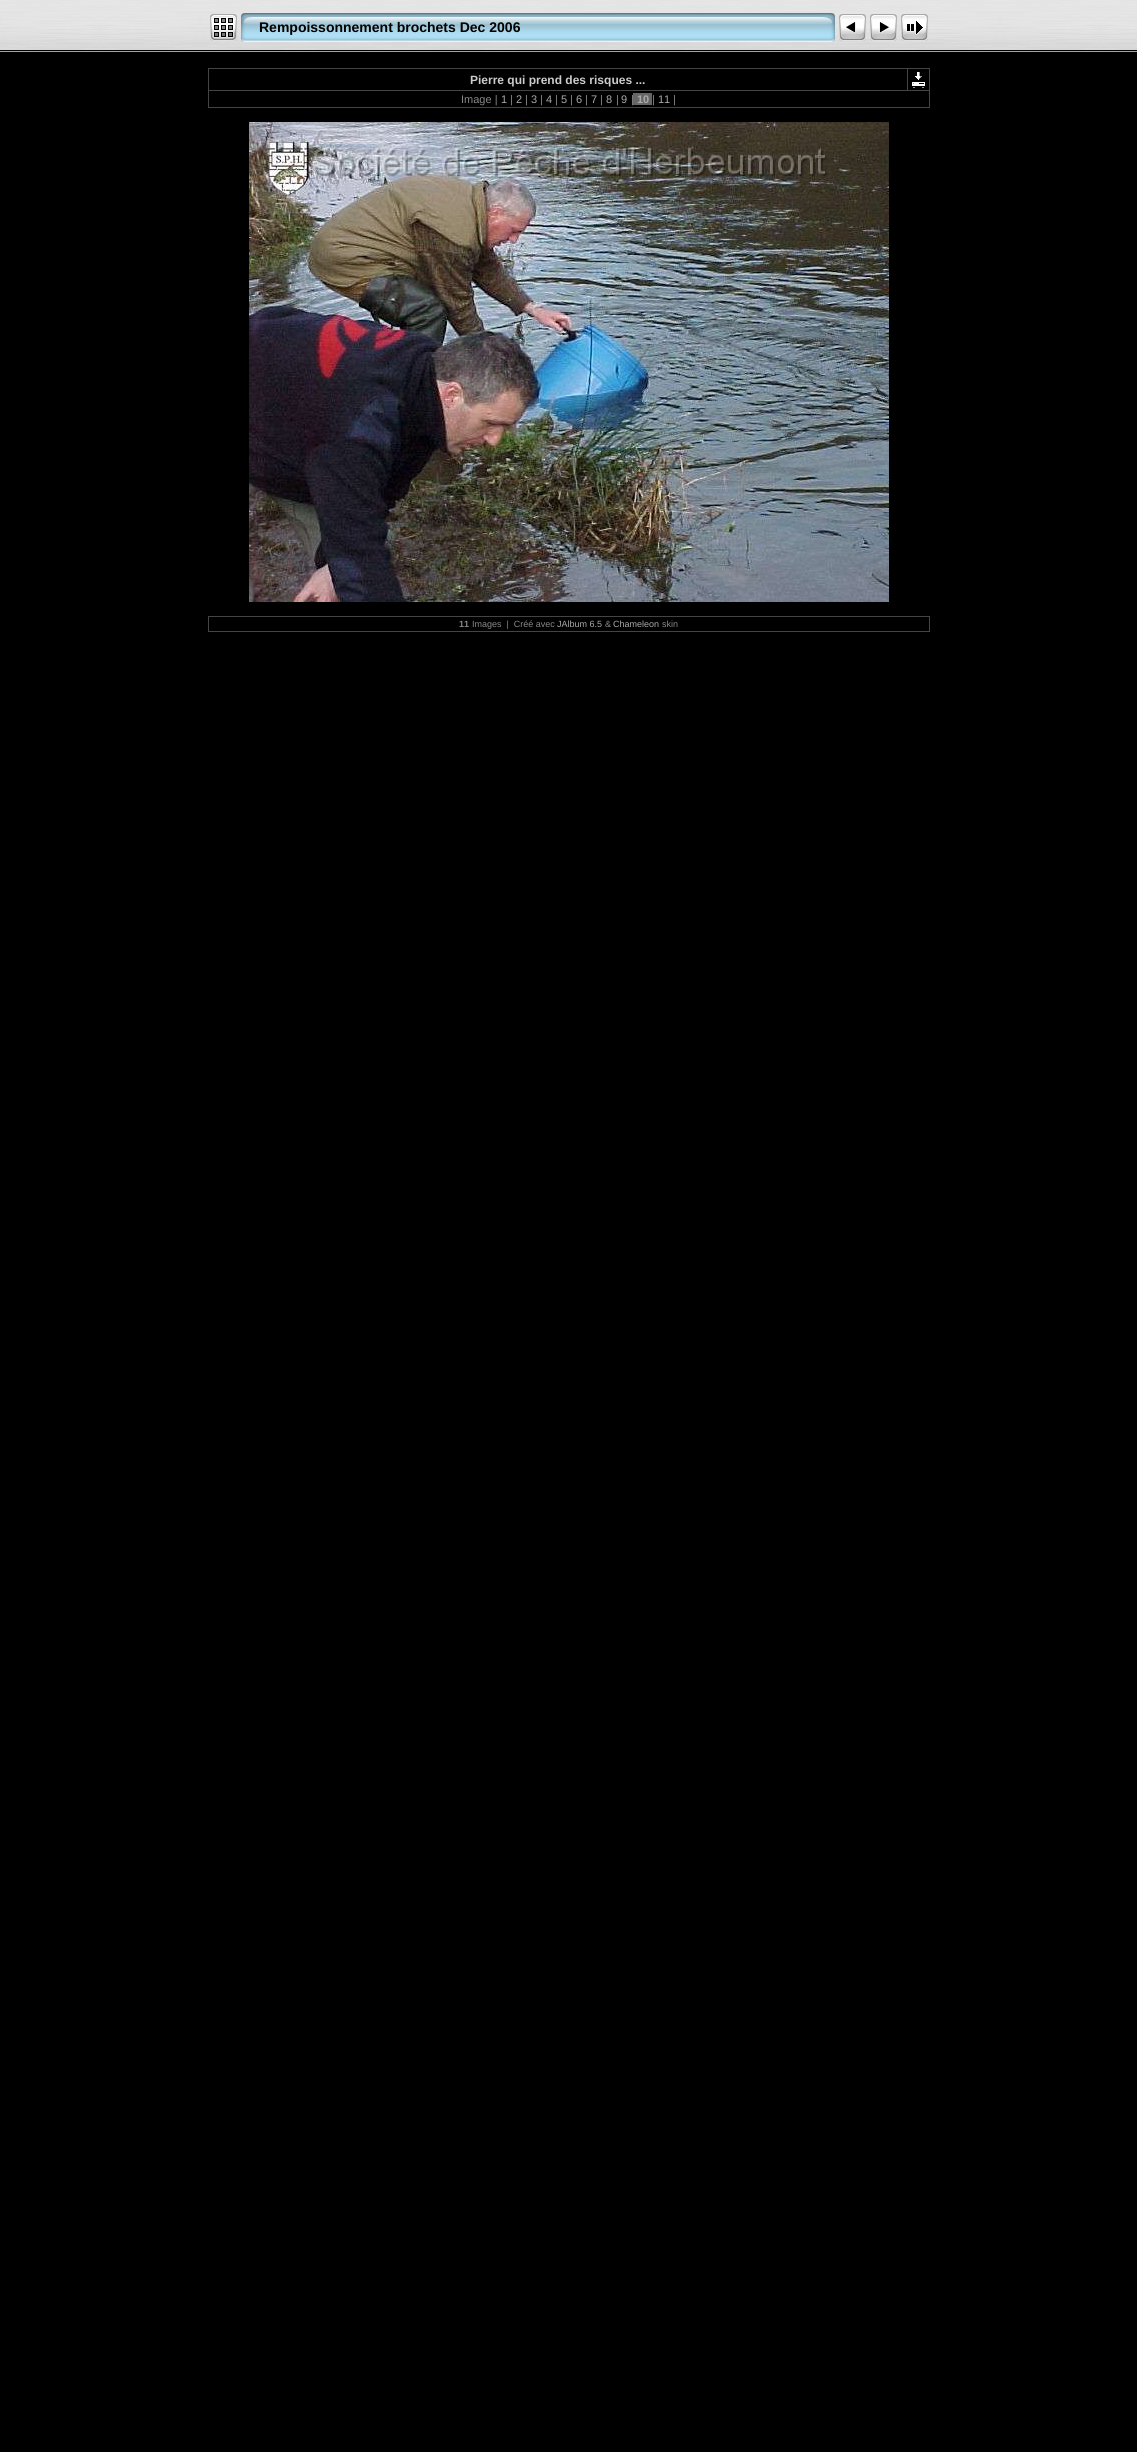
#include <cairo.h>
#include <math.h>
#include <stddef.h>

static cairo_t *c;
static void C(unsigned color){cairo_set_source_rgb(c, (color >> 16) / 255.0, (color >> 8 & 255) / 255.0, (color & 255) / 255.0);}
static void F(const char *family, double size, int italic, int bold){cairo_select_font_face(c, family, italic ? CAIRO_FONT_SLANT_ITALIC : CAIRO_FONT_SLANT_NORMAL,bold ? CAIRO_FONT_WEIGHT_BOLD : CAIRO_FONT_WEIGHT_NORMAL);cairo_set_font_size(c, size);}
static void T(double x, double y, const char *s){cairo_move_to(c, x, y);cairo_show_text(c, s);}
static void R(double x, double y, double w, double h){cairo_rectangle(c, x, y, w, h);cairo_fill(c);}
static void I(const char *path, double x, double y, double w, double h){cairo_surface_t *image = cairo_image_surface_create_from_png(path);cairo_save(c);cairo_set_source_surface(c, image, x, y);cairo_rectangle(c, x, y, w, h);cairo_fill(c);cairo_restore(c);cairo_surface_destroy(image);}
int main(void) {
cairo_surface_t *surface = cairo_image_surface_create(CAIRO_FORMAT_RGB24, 1137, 2452);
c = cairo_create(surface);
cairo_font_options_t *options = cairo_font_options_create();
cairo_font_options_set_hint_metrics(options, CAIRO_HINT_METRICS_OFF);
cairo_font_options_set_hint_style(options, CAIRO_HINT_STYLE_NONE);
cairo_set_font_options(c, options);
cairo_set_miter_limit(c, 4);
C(0x000000);
cairo_paint(c);
I("1.png",0,0,1137,52);
I("2.png",210,14,27,27);
I("3.png",241,13,18,29);
I("4.png",259,13,558,29);
F("Liberation Sans",14,0,1);
C(0x000000);
T(259,32,"Rempoissonnement brochets Dec 2006");
I("5.png",817,13,18,29);
I("6.png",839,14,27,27);
I("7.png",870,14,27,27);
I("8.png",901,14,27,27);
C(0x444444);
R(208,68,722,1);
R(929,68,1,40);
R(208,107,722,1);
R(208,68,1,40);
F("Liberation Sans",12,0,1);
C(0xcccccc);
T(470,84,"Pierre qui prend des risques ...");
C(0x444444);
R(208,90,722,1);
R(907,68,1,23);
I("9.png",912,72,13,16);
F("Liberation Sans",11,0,0);
C(0x888888);
T(461,103,"Image |");
C(0xaaaaaa);
T(501,103,"1");
C(0x888888);
T(510,103,"|");
C(0xaaaaaa);
T(516,103,"2");
C(0x888888);
T(525,103,"|");
C(0xaaaaaa);
T(531,103,"3");
C(0x888888);
T(540,103,"|");
C(0xaaaaaa);
T(546,103,"4");
C(0x888888);
T(555,103,"|");
C(0xaaaaaa);
T(561,103,"5");
C(0x888888);
T(570,103,"|");
C(0xaaaaaa);
T(576,103,"6");
C(0x888888);
T(585,103,"|");
C(0xaaaaaa);
T(591,103,"7");
C(0x888888);
T(600,103,"|");
C(0xaaaaaa);
T(606,103,"8");
C(0x888888);
T(616,103,"|");
C(0xaaaaaa);
T(621,103,"9");
C(0x888888);
T(631,103,"|");
C(0x666666);
R(633,93,19,12);
F("Liberation Sans",11,0,1);
C(0xaaaaaa);
T(637,103,"10");
F("Liberation Sans",11,0,0);
C(0x888888);
T(652,103,"|");
C(0xaaaaaa);
T(658,103,"11");
C(0x888888);
T(673,103,"|");
I("10.png",249,122,640,480);
C(0x444444);
R(208,616,722,1);
R(929,616,1,16);
R(208,631,722,1);
R(208,616,1,16);
F("Liberation Sans",9,0,1);
C(0x888888);
T(459,627,"11");
F("Liberation Sans",9,0,0);
T(472,627,"Images  |  Créé avec");
C(0xaaaaaa);
T(557,627,"JAlbum 6.5");
C(0x888888);
T(605,627,"&");
C(0xaaaaaa);
T(613,627,"Chameleon");
C(0x888888);
T(662,627,"skin");
cairo_surface_write_to_png(surface, "o.png");
cairo_font_options_destroy(options);
cairo_destroy(c);
cairo_surface_destroy(surface);
return 0;
}
